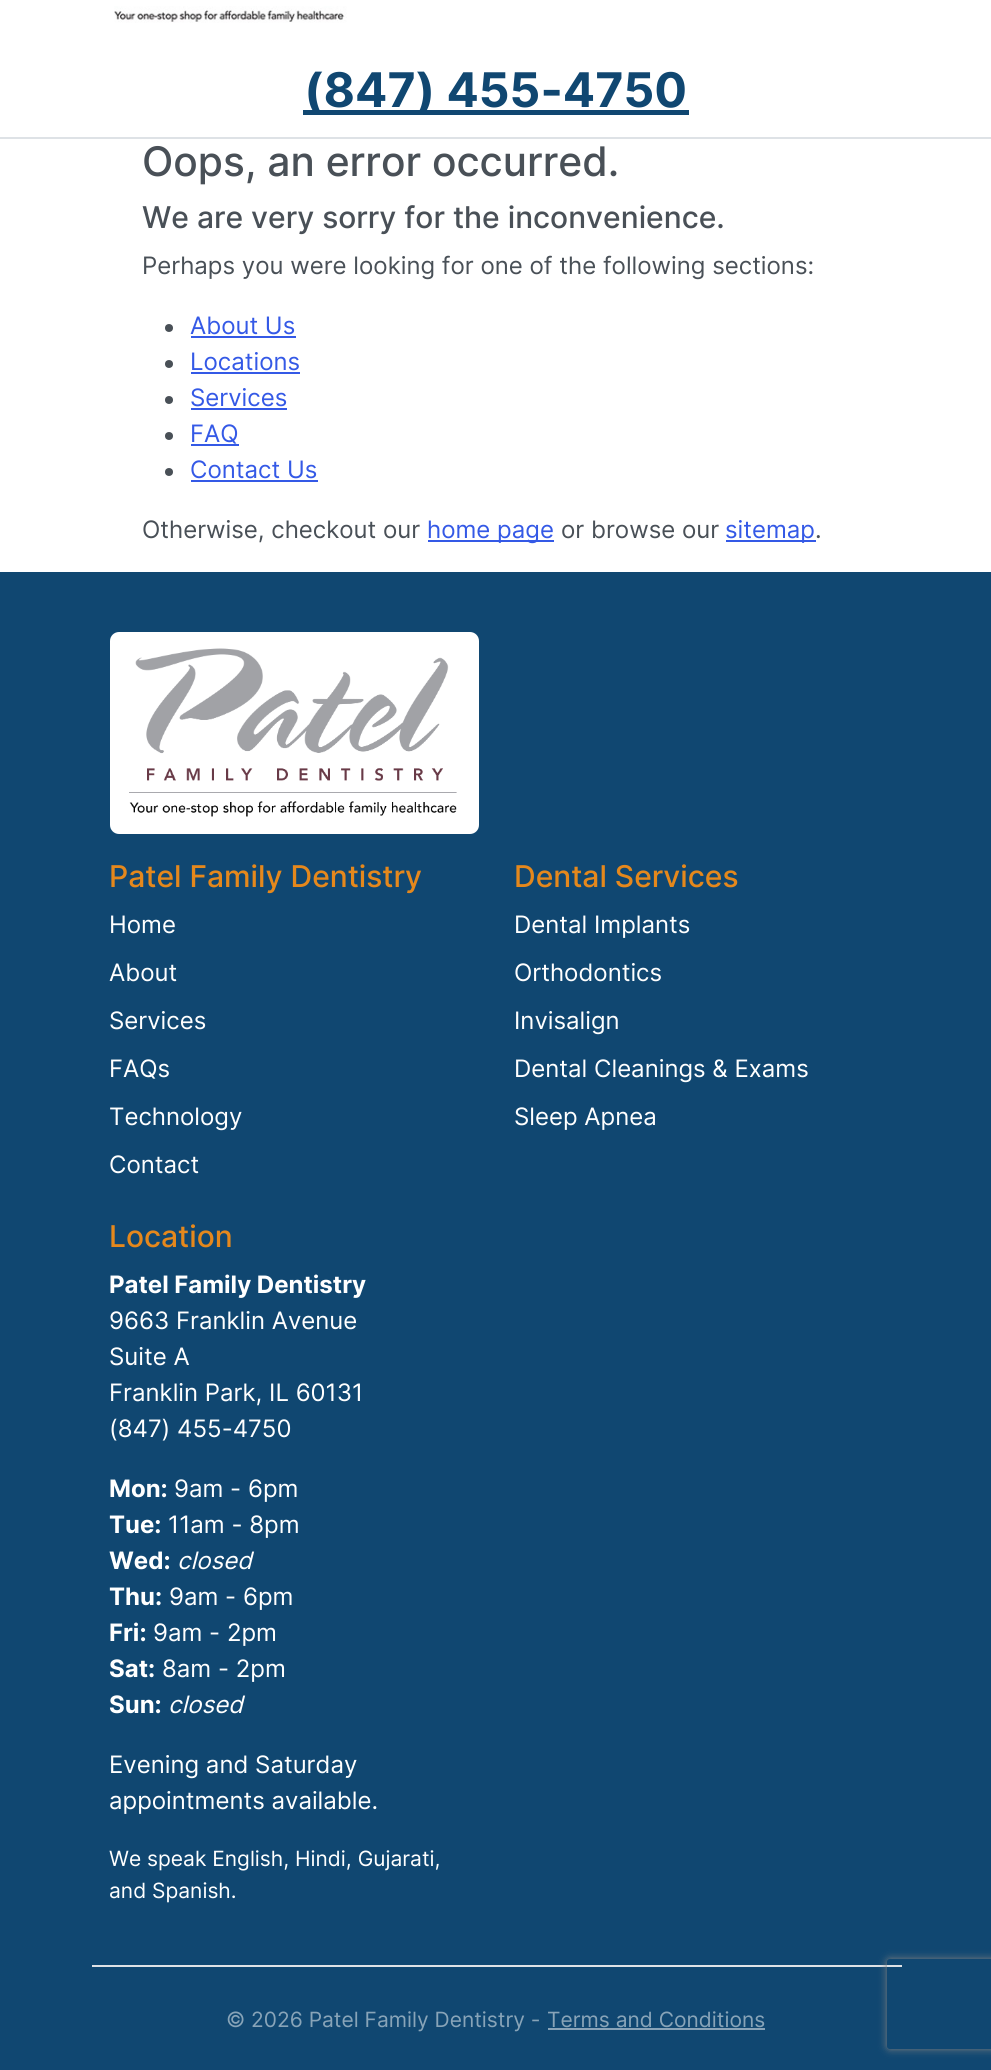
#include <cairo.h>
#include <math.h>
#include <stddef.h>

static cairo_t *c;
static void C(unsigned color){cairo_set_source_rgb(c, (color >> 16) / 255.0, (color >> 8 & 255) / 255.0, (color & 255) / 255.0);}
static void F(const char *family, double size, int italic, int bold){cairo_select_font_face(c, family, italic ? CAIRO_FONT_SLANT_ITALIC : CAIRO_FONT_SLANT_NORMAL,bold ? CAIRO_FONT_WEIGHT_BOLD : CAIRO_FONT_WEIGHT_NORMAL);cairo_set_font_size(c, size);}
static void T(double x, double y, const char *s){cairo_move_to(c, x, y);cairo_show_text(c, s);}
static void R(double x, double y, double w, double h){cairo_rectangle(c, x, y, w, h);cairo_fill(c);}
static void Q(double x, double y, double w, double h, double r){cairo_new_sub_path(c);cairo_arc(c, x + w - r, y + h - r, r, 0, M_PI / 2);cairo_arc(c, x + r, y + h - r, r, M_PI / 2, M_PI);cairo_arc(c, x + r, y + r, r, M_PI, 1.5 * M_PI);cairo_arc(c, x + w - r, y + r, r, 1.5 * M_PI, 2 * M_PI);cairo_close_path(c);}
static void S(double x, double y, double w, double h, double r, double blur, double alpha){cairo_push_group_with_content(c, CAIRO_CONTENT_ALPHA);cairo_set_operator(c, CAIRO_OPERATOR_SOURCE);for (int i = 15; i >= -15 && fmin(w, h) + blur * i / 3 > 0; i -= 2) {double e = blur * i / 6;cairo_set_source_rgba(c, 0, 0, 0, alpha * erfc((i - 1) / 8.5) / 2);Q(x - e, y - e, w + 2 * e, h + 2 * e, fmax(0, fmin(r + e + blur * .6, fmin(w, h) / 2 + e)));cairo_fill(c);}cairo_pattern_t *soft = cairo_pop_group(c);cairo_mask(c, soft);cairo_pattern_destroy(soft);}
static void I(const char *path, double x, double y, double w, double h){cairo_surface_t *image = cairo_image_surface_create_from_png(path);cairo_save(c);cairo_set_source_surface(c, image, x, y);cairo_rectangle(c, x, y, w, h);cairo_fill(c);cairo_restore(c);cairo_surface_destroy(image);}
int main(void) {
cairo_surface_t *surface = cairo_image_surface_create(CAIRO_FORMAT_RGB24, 991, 2070);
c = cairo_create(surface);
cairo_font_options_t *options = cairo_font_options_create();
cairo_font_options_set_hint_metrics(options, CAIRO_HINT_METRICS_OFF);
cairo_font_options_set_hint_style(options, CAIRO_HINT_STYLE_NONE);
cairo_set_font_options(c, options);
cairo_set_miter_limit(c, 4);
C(0xffffff);
cairo_paint(c);
C(0xdee2e6);
R(0,137,991,2);
I("1.png",114,6,233,17);
C(0x104771);
R(303,110,386,5);
F("Inter",47.75,0,1);
T(304,107,"(847) 455-4750");
F("Inter Medium",40.75,0,0);
C(0x495057);
T(142,176,"Oops, an error occurred.");
F("Inter Medium",30,0,0);
T(142,228,"We are very sorry for the inconvenience.");
F("Inter",24,0,0);
T(142,274,"Perhaps you were looking for one of the following sections:");
cairo_new_path(c);
cairo_arc(c,169,328,4,0,2 * M_PI);
cairo_fill(c);
C(0x3459e6);
T(190,334,"About Us");
R(191,336,105,2);
C(0x495057);
cairo_new_path(c);
cairo_arc(c,169,364,4,0,2 * M_PI);
cairo_fill(c);
C(0x3459e6);
T(190,370,"Locations");
R(191,372,109,2);
C(0x495057);
cairo_new_path(c);
cairo_arc(c,169,400,4,0,2 * M_PI);
cairo_fill(c);
C(0x3459e6);
T(190,406,"Services");
R(191,408,96,2);
C(0x495057);
cairo_new_path(c);
cairo_arc(c,169,436,4,0,2 * M_PI);
cairo_fill(c);
C(0x3459e6);
T(190,442,"FAQ");
R(191,444,48,2);
C(0x495057);
cairo_new_path(c);
cairo_arc(c,169,472,4,0,2 * M_PI);
cairo_fill(c);
C(0x3459e6);
T(190,478,"Contact Us");
R(191,480,127,2);
C(0x495057);
T(142,538,"Otherwise, checkout our");
C(0x3459e6);
R(428,540,126,2);
T(427,538,"home page");
C(0x495057);
T(561,538,"or browse our");
C(0x3459e6);
R(726,540,90,2);
T(725,538,"sitemap");
C(0x495057);
T(815,538,".");
C(0x104771);
R(0,572,991,1498);
C(0x88a3b8);
R(548,2028,217,2);
C(0xdee2e6);
R(92,1965,810,2);
C(0xffffff);
Q(110,632,369,202,9);
cairo_fill(c);
I("2.png",129,648,328,169);
F("Inter Medium",30,0,0);
C(0xe5881c);
T(109,887,"Patel Family Dentistry");
F("Inter",24,0,0);
C(0xffffff);
T(109,933,"Home");
T(109,981,"About");
T(109,1029,"Services");
T(109,1077,"FAQs");
T(109,1125,"Technology");
T(109,1173,"Contact");
F("Inter Medium",30,0,0);
C(0xe5881c);
T(514,887,"Dental Services");
F("Inter",24,0,0);
C(0xffffff);
T(514,933,"Dental Implants");
T(514,981,"Orthodontics");
T(514,1029,"Invisalign");
T(514,1077,"Dental Cleanings & Exams");
T(514,1125,"Sleep Apnea");
F("Inter Medium",30,0,0);
C(0xe5881c);
T(109,1247,"Location");
F("Inter",24,0,1);
C(0xffffff);
T(109,1293,"Patel Family Dentistry");
F("Inter",24,0,0);
T(109,1329,"9663 Franklin Avenue");
T(109,1365,"Suite A");
T(109,1401,"Franklin Park, IL 60131");
T(109,1437,"(847) 455-4750");
F("Inter",24,0,1);
T(109,1497,"Mon:");
F("Inter",24,0,0);
T(174,1497,"9am - 6pm");
F("Inter",24,0,1);
T(109,1533,"Tue:");
F("Inter",24,0,0);
T(168,1533,"11am - 8pm");
F("Inter",24,0,1);
T(109,1569,"Wed:");
F("Inter",24,1,0);
T(177,1569,"closed");
F("Inter",24,0,1);
T(109,1605,"Thu:");
F("Inter",24,0,0);
T(169,1605,"9am - 6pm");
F("Inter",24,0,1);
T(109,1641,"Fri:");
F("Inter",24,0,0);
T(153,1641,"9am - 2pm");
F("Inter",24,0,1);
T(109,1677,"Sat:");
F("Inter",24,0,0);
T(162,1677,"8am - 2pm");
F("Inter",24,0,1);
T(109,1713,"Sun:");
F("Inter",24,1,0);
T(168,1713,"closed");
F("Inter",24,0,0);
T(109,1773,"Evening and Saturday");
T(109,1809,"appointments available.");
F("Inter",21,0,0);
T(109,1866,"We speak English, Hindi, Gujarati,");
T(109,1898,"and Spanish.");
C(0x88a4b8);
T(226,2027,"© 2026 Patel Family Dentistry -");
T(547,2027,"Terms and Conditions");
cairo_save(c);
cairo_set_fill_rule(c,CAIRO_FILL_RULE_EVEN_ODD);
cairo_new_path(c);
cairo_move_to(c,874,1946);
cairo_line_to(c,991,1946);
cairo_line_to(c,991,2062);
cairo_line_to(c,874,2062);
cairo_close_path(c);
cairo_move_to(c,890,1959);
cairo_line_to(c,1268,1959);
cairo_curve_to(c,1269.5,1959,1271,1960.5,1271,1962);
cairo_line_to(c,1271,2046);
cairo_curve_to(c,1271,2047.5,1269.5,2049,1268,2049);
cairo_line_to(c,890,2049);
cairo_curve_to(c,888.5,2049,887,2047.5,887,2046);
cairo_line_to(c,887,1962);
cairo_curve_to(c,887,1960.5,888.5,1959,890,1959);
cairo_close_path(c);
cairo_clip(c);
C(0x808080);
S(887,1959,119,90,3,4,1);
cairo_restore(c);
cairo_surface_write_to_png(surface, "o.png");
cairo_font_options_destroy(options);
cairo_destroy(c);
cairo_surface_destroy(surface);
return 0;
}
